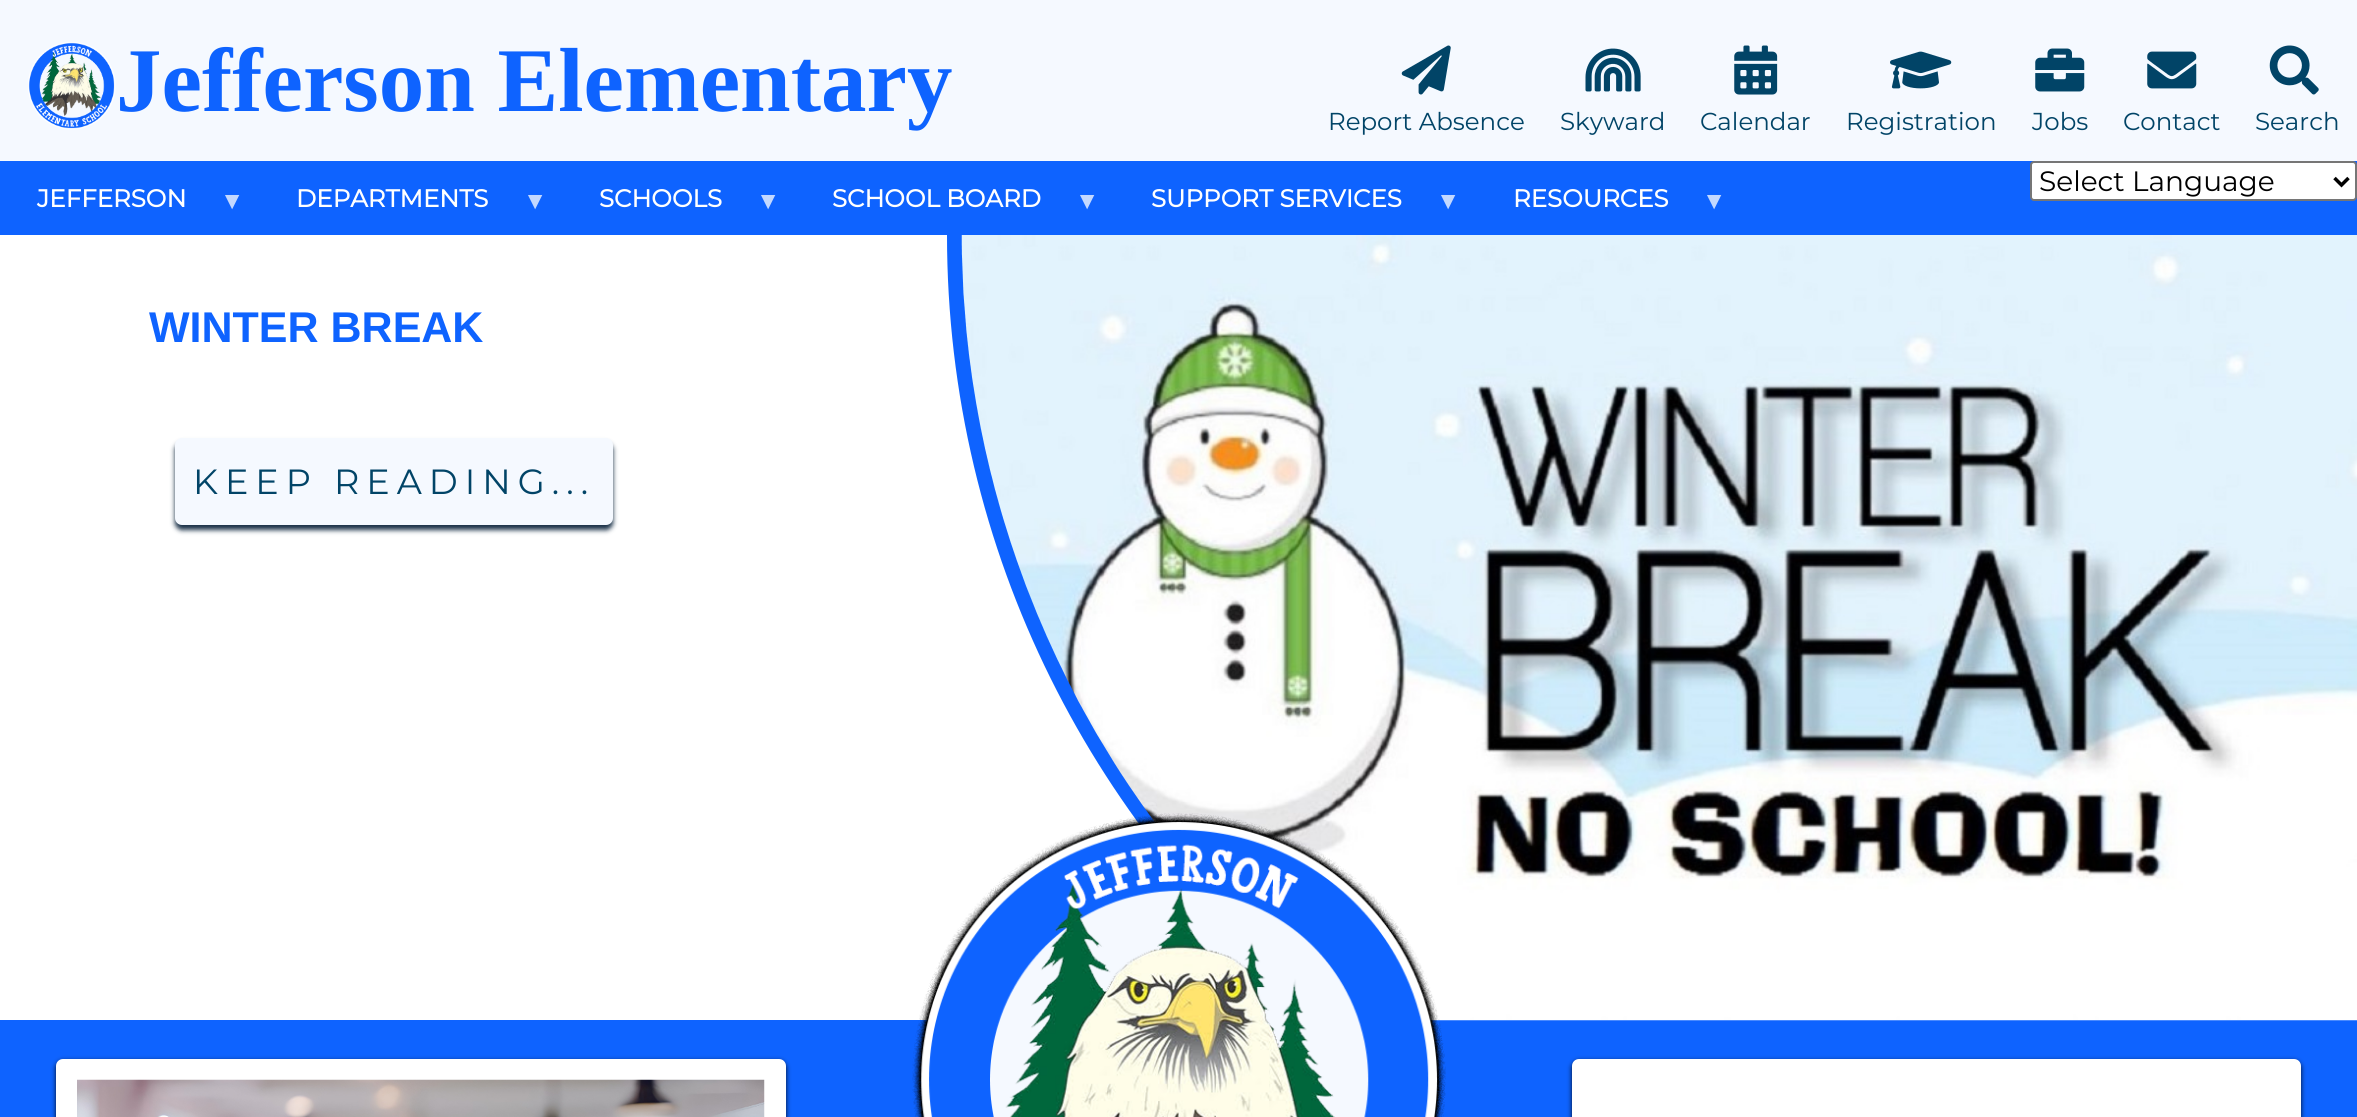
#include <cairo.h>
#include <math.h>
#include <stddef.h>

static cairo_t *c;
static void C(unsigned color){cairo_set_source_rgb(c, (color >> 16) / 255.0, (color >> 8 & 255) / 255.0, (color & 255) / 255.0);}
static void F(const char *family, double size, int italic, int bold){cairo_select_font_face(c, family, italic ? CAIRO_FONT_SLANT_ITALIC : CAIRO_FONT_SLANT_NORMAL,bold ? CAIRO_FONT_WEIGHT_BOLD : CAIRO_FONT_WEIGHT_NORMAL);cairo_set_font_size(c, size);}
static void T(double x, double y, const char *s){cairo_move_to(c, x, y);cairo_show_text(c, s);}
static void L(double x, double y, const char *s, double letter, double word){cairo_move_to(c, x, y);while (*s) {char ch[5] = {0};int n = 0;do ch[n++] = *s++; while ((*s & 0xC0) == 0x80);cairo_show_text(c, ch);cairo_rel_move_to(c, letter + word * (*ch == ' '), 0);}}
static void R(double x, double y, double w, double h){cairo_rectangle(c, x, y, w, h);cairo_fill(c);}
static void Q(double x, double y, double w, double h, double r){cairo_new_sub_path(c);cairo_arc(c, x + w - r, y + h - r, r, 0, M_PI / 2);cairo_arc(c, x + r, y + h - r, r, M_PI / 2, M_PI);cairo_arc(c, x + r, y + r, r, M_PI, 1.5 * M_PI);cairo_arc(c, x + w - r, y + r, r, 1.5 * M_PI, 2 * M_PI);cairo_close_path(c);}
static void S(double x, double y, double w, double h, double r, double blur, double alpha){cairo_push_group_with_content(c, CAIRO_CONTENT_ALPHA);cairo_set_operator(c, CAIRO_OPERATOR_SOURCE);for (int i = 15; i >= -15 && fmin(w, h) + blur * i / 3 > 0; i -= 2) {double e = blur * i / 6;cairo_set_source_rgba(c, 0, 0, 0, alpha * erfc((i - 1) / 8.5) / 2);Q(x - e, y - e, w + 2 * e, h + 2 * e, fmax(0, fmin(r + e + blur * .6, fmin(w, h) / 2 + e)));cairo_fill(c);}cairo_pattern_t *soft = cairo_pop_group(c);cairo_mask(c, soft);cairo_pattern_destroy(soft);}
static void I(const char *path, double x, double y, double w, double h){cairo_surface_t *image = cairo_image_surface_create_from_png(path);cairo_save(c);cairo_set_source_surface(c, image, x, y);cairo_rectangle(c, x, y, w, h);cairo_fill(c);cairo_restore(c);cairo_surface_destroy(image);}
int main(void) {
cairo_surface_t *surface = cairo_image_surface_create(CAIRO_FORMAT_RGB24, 2357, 1117);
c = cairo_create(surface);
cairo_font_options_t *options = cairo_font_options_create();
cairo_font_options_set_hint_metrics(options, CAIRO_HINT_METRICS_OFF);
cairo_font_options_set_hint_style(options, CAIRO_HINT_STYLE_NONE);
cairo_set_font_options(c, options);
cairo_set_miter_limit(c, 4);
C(0xf5f9ff);
cairo_paint(c);
I("1.png",28,42,88,88);
F("Liberation Serif",91,0,1);
C(0x0e63ff);
T(116,111,"Jefferson Elementary");
I("2.png",1401,45,50,50);
F("Montserrat Thin",24.5,0,0);
C(0x014467);
T(1328,130,"Report Absence");
I("3.png",1585,48,56,44);
T(1560,130,"Skyward");
I("4.png",1734,45,44,50);
T(1700,130,"Calendar");
I("5.png",1890,51,62,38);
T(1846,130,"Registration");
I("6.png",2035,48,50,44);
T(2032,130,"Jobs");
I("7.png",2147,51,50,38);
T(2123,130,"Contact");
I("8.png",2269,45,50,50);
T(2255,130,"Search");
C(0x0e63ff);
R(0,161,2357,74);
F("Montserrat",24.5,0,1);
C(0xffffff);
T(37,207,"JEFFERSON");
F("Liberation Sans",24.5,0,1);
C(0xc3d8ff);
T(220,209,"▼");
F("Montserrat",24.5,0,1);
C(0xffffff);
T(296,207,"DEPARTMENTS");
F("Liberation Sans",24.5,0,1);
C(0xc3d8ff);
T(523,209,"▼");
F("Montserrat",24.5,0,1);
C(0xffffff);
T(599,207,"SCHOOLS");
F("Liberation Sans",24.5,0,1);
C(0xc3d8ff);
T(756,209,"▼");
F("Montserrat",24.5,0,1);
C(0xffffff);
T(832,207,"SCHOOL BOARD");
F("Liberation Sans",24.5,0,1);
C(0xc3d8ff);
T(1075,209,"▼");
F("Montserrat",24.5,0,1);
C(0xffffff);
T(1151,207,"SUPPORT SERVICES");
F("Liberation Sans",24.5,0,1);
C(0xc3d8ff);
T(1436,209,"▼");
F("Montserrat",24.5,0,1);
C(0xffffff);
T(1513,207,"RESOURCES");
F("Liberation Sans",24.5,0,1);
C(0xc3d8ff);
T(1702,209,"▼");
C(0xffffff);
Q(2031,162,325,38,3);
cairo_fill_preserve(c);
C(0x767676);
cairo_stroke(c);
cairo_new_path(c);
cairo_move_to(c,2334.5,178);
cairo_line_to(c,2341.5,185);
cairo_line_to(c,2348.5,178);
C(0x000000);
cairo_set_line_width(c,3.5);
cairo_stroke(c);
F("Montserrat Thin",28,0,0);
T(2039,191,"Select Language");
C(0xffffff);
R(0,235,1140,785);
F("Liberation Sans",43,0,1);
C(0x0e63ff);
T(149,342,"WINTER BREAK");
C(0x193047);
S(175,443,438,87,7,2.5,1);
C(0xf5f9ff);
Q(175,438,438,87,7);
cairo_fill(c);
F("Montserrat Thin",35,0,0);
C(0x014467);
L(193,494,"KEEP READING...",7,0);
C(0x0e63ff);
cairo_new_path(c);
cairo_move_to(c,1328,1020);
cairo_curve_to(c,1096,837,947,553,947,235);
cairo_line_to(c,2357,235);
cairo_line_to(c,2357,1020);
cairo_close_path(c);
cairo_fill(c);
R(0,1020,2357,97);
I("9.png",961,235,1396,786);
C(0x000000);
S(56,1061,730,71,7,2.5,.9);
C(0xffffff);
Q(56,1059,730,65,7);
cairo_fill(c);
I("10.png",77,1079,688,38);
I("11.png",912,813,534,304);
C(0x000000);
S(1572,1061,729,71,7,2.5,.9);
C(0xffffff);
Q(1572,1059,729,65,7);
cairo_fill(c);
cairo_surface_write_to_png(surface, "o.png");
cairo_font_options_destroy(options);
cairo_destroy(c);
cairo_surface_destroy(surface);
return 0;
}
